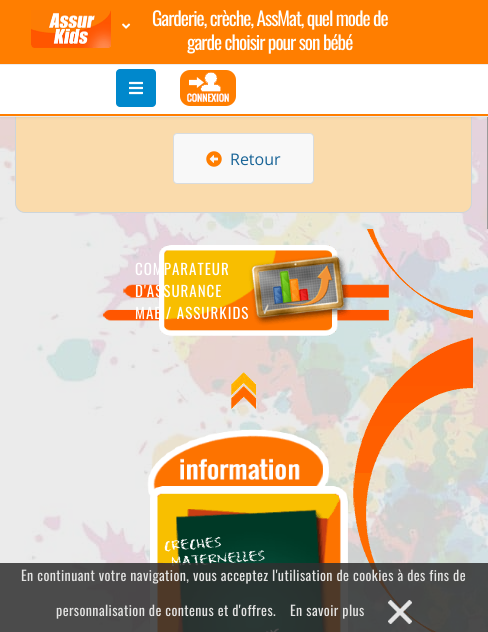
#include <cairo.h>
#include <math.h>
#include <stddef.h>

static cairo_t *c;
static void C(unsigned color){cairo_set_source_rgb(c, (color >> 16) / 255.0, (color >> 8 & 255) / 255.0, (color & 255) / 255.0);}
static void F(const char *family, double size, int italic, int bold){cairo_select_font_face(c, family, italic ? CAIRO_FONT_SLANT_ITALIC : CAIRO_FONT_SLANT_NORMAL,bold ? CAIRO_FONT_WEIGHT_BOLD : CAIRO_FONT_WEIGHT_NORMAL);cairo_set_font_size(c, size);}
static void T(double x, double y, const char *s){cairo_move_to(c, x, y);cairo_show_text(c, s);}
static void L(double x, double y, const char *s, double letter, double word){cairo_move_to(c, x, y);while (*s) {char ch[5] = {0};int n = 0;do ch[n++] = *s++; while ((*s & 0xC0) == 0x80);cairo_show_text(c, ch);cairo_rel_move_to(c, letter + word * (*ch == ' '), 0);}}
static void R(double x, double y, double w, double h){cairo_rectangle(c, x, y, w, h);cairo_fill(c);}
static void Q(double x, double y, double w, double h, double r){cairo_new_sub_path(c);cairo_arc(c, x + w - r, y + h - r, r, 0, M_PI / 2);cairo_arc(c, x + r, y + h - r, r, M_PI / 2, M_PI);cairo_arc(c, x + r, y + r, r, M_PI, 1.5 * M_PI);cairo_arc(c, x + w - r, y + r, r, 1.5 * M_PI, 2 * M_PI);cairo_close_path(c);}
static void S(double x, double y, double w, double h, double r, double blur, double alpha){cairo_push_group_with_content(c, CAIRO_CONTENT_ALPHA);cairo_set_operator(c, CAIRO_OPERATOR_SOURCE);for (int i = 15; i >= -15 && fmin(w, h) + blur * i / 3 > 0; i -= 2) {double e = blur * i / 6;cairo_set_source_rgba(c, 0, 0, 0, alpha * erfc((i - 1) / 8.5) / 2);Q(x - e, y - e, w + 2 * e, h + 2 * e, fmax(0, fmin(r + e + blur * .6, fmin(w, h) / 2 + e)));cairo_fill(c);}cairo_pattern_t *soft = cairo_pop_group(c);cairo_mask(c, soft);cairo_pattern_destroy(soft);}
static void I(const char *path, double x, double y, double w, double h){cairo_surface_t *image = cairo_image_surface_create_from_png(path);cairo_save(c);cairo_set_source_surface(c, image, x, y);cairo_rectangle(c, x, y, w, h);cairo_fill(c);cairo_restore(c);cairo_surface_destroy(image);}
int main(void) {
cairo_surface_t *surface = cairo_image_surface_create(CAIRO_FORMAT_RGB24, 488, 632);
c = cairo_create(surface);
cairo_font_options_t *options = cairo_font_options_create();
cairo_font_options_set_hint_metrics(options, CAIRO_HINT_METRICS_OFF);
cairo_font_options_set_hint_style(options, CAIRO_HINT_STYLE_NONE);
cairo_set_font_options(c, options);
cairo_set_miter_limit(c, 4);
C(0xffffff);
cairo_paint(c);
I("1.png",0,117,488,515);
C(0x9a9a9a);
R(487,117,1,112);
C(0xfadbac);
Q(15.5,-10.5,456,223,9.5);
cairo_fill_preserve(c);
C(0xcdd5da);
cairo_set_line_width(c,1);
cairo_stroke(c);
C(0x000000);
S(0,0,488,117,0,1.5,.1);
C(0xffffff);
R(0,65,488,49);
C(0xe9e9e9);
R(0,116,488,1);
C(0xededed);
R(0,64,488,1);
C(0xff7e00);
R(0,0,488,64);
I("2.png",31,10,80,38);
I("3.png",122,23,9,6);
F("Oswald",19.25,0,0);
C(0xffffff);
L(152,26,"Garderie, crèche, AssMat, quel mode de",-1,0);
L(187,50,"garde choisir pour son bébé",-1,0);
C(0xff7e00);
R(0,114,488,2);
C(0x0088cc);
Q(116,69,40,38,4);
cairo_fill(c);
I("4.png",129,81,14,14);
I("5.png",180,70,56,36);
C(0xf8f8f8);
Q(173.5,133.5,140,50,3.5);
cairo_fill_preserve(c);
C(0xd8dcdf);
cairo_stroke(c);
I("6.png",206,151,16,16);
F("Open Sans",16,0,0);
C(0x176396);
T(230,165,"Retour");
I("7.png",353,229,120,403);
I("8.png",102,245,287,91);
F("Oswald",15,0,0);
C(0xffffff);
L(135,275,"COMPARATEUR",1,0);
L(135,297,"D'ASSURANCE",1,0);
L(135,319,"MAE / ASSURKIDS",1,0);
I("9.png",231,372,25,37);
I("10.png",147,429,201,203);
F("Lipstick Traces",12,0,0);
cairo_save(c);
cairo_translate(c,164,550);
cairo_rotate(c,-4 * M_PI / 180);
L(0,0,"Creches",1,0);
cairo_restore(c);
cairo_save(c);
cairo_translate(c,172,566);
cairo_rotate(c,-4 * M_PI / 180);
L(0,0,"Maternelles",1,0);
cairo_restore(c);
cairo_set_source_rgba(c,0.188,0.188,0.188,0.85);
R(0,563,488,69);
F("Oswald",14,0,0);
C(0xe3e3e2);
L(21,581,"En continuant votre navigation, vous acceptez l'utilisation de cookies à des fins de",.4,0);
L(56,616,"personnalisation de contenus et d'offres.",.4,0);
L(290,616,"En savoir plus",.4,0);
I("11.png",388,600,24,24);
cairo_surface_write_to_png(surface, "o.png");
cairo_font_options_destroy(options);
cairo_destroy(c);
cairo_surface_destroy(surface);
return 0;
}
